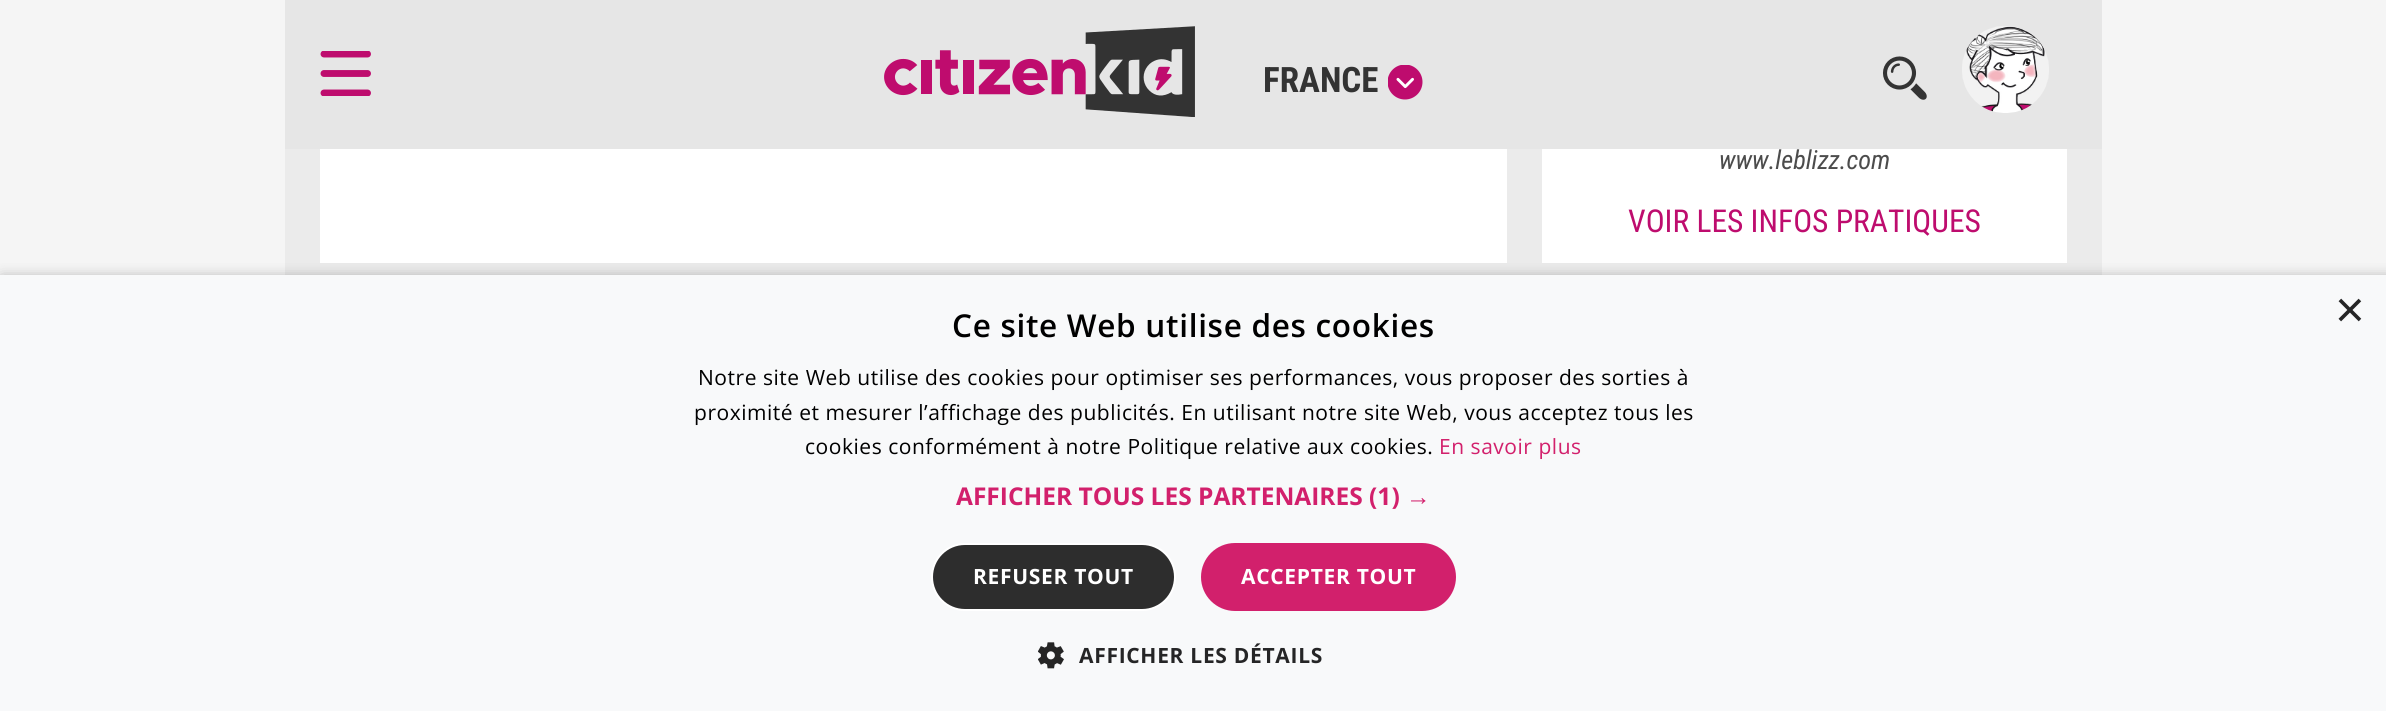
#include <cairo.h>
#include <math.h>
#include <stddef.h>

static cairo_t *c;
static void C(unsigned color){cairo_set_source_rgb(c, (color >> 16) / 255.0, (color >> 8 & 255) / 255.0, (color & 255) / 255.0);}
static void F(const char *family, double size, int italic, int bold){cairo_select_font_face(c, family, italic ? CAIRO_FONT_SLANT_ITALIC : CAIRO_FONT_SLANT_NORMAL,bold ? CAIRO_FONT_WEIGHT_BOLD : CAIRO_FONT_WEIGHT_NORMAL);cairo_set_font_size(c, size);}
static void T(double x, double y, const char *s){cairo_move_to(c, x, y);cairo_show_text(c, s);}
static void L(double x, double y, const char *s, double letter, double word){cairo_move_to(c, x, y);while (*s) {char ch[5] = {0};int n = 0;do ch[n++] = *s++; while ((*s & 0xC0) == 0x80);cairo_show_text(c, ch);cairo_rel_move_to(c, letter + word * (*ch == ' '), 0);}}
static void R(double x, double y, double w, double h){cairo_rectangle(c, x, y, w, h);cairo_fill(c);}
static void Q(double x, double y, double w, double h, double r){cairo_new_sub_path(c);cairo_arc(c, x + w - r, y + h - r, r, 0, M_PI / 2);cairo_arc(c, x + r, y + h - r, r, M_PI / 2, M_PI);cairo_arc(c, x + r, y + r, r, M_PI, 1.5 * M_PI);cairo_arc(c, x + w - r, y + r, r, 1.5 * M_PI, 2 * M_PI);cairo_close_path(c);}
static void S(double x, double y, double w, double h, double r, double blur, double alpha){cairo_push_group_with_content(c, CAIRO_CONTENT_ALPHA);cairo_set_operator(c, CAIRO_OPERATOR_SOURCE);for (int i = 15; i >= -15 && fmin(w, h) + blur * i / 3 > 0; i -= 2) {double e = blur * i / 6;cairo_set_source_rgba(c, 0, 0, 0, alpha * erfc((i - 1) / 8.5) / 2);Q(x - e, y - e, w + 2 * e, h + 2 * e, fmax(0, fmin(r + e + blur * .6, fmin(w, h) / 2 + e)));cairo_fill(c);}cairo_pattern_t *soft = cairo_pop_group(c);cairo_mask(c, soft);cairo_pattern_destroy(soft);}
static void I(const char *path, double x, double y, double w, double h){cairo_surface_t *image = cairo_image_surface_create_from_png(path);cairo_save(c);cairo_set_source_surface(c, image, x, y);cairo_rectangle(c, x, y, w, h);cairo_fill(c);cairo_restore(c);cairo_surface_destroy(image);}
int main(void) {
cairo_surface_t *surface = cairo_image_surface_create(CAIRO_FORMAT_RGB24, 2386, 711);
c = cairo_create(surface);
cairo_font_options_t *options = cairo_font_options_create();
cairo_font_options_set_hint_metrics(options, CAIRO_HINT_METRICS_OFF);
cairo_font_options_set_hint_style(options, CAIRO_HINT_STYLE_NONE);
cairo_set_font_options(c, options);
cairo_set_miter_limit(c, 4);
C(0xf5f5f5);
cairo_paint(c);
C(0xe6e6e6);
R(285,0,1817,149);
cairo_save(c);
cairo_rectangle(c,320,51,51,45);
cairo_clip(c);
cairo_new_path(c);
cairo_move_to(c,324,54);
cairo_line_to(c,367.5,54);
C(0xbe0c6e);
cairo_set_line_width(c,6.9);
cairo_set_line_cap(c,CAIRO_LINE_CAP_ROUND);
cairo_stroke(c);
cairo_restore(c);
cairo_new_path(c);
cairo_move_to(c,324,73.5);
cairo_line_to(c,367.5,73.5);
C(0xbe0c6e);
cairo_set_line_width(c,6.9);
cairo_set_line_cap(c,CAIRO_LINE_CAP_ROUND);
cairo_stroke(c);
cairo_save(c);
cairo_rectangle(c,320,51,51,45);
cairo_clip(c);
cairo_new_path(c);
cairo_move_to(c,324,93);
cairo_line_to(c,367.5,93);
cairo_stroke(c);
cairo_restore(c);
I("1.png",884,26,311,91);
F("Roboto Condensed",35,0,1);
C(0x333333);
T(1263,92,"FRANCE");
I("2.png",1388,65,35,35);
I("3.png",1883,56,44,44);
I("4.png",1962,26,87,87);
C(0xebebeb);
R(285,149,1817,126);
C(0xffffff);
R(320,149,1187,114);
R(1542,149,525,114);
F("Roboto Condensed",26.25,1,0);
C(0x4c4c4c);
T(1719,169,"www.leblizz.com");
F("Roboto Condensed",31.5,0,0);
C(0xbe0c6e);
T(1628,232,"VOIR LES INFOS PRATIQUES");
C(0x000000);
S(2,278,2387,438,0,7,.35);
C(0xf8f9fa);
R(0,275,2386,436);
F("Liberation Sans",51,0,0);
C(0x252526);
T(2335,327,"×");
F("Open Sans SemiBold",31.5,0,0);
C(0x000000);
L(952,337,"Ce site Web utilise des cookies",.7,0);
F("Open Sans",21,0,0);
L(698,385,"Notre site Web utilise des cookies pour optimiser ses performances, vous proposer des sorties à",.53,0);
L(694,420,"proximité et mesurer l’affichage des publicités. En utilisant notre site Web, vous acceptez tous les",.53,0);
L(805,454,"cookies conformément à notre Politique relative aux cookies.",.53,0);
C(0xd2206c);
L(1439,454,"En savoir plus",.53,0);
F("Open Sans",24.5,0,1);
T(956,505,"AFFICHER TOUS LES PARTENAIRES (1)");
F("Liberation Sans",24.5,0,1);
T(1406,505,"→");
C(0x2d2d2d);
Q(932,544,243,66,33);
cairo_fill_preserve(c);
C(0xffffff);
cairo_set_line_width(c,2);
cairo_set_line_cap(c,CAIRO_LINE_CAP_BUTT);
cairo_stroke(c);
F("Open Sans",21,0,1);
L(973,584,"REFUSER TOUT",.7,0);
C(0xd2206c);
Q(1201,543,255,68,34);
cairo_fill(c);
C(0xffffff);
L(1241,584,"ACCEPTER TOUT",.7,0);
I("5.png",1038,642,26,27);
C(0x252526);
L(1079,663,"AFFICHER LES DÉTAILS",.7,0);
cairo_surface_write_to_png(surface, "o.png");
cairo_font_options_destroy(options);
cairo_destroy(c);
cairo_surface_destroy(surface);
return 0;
}
